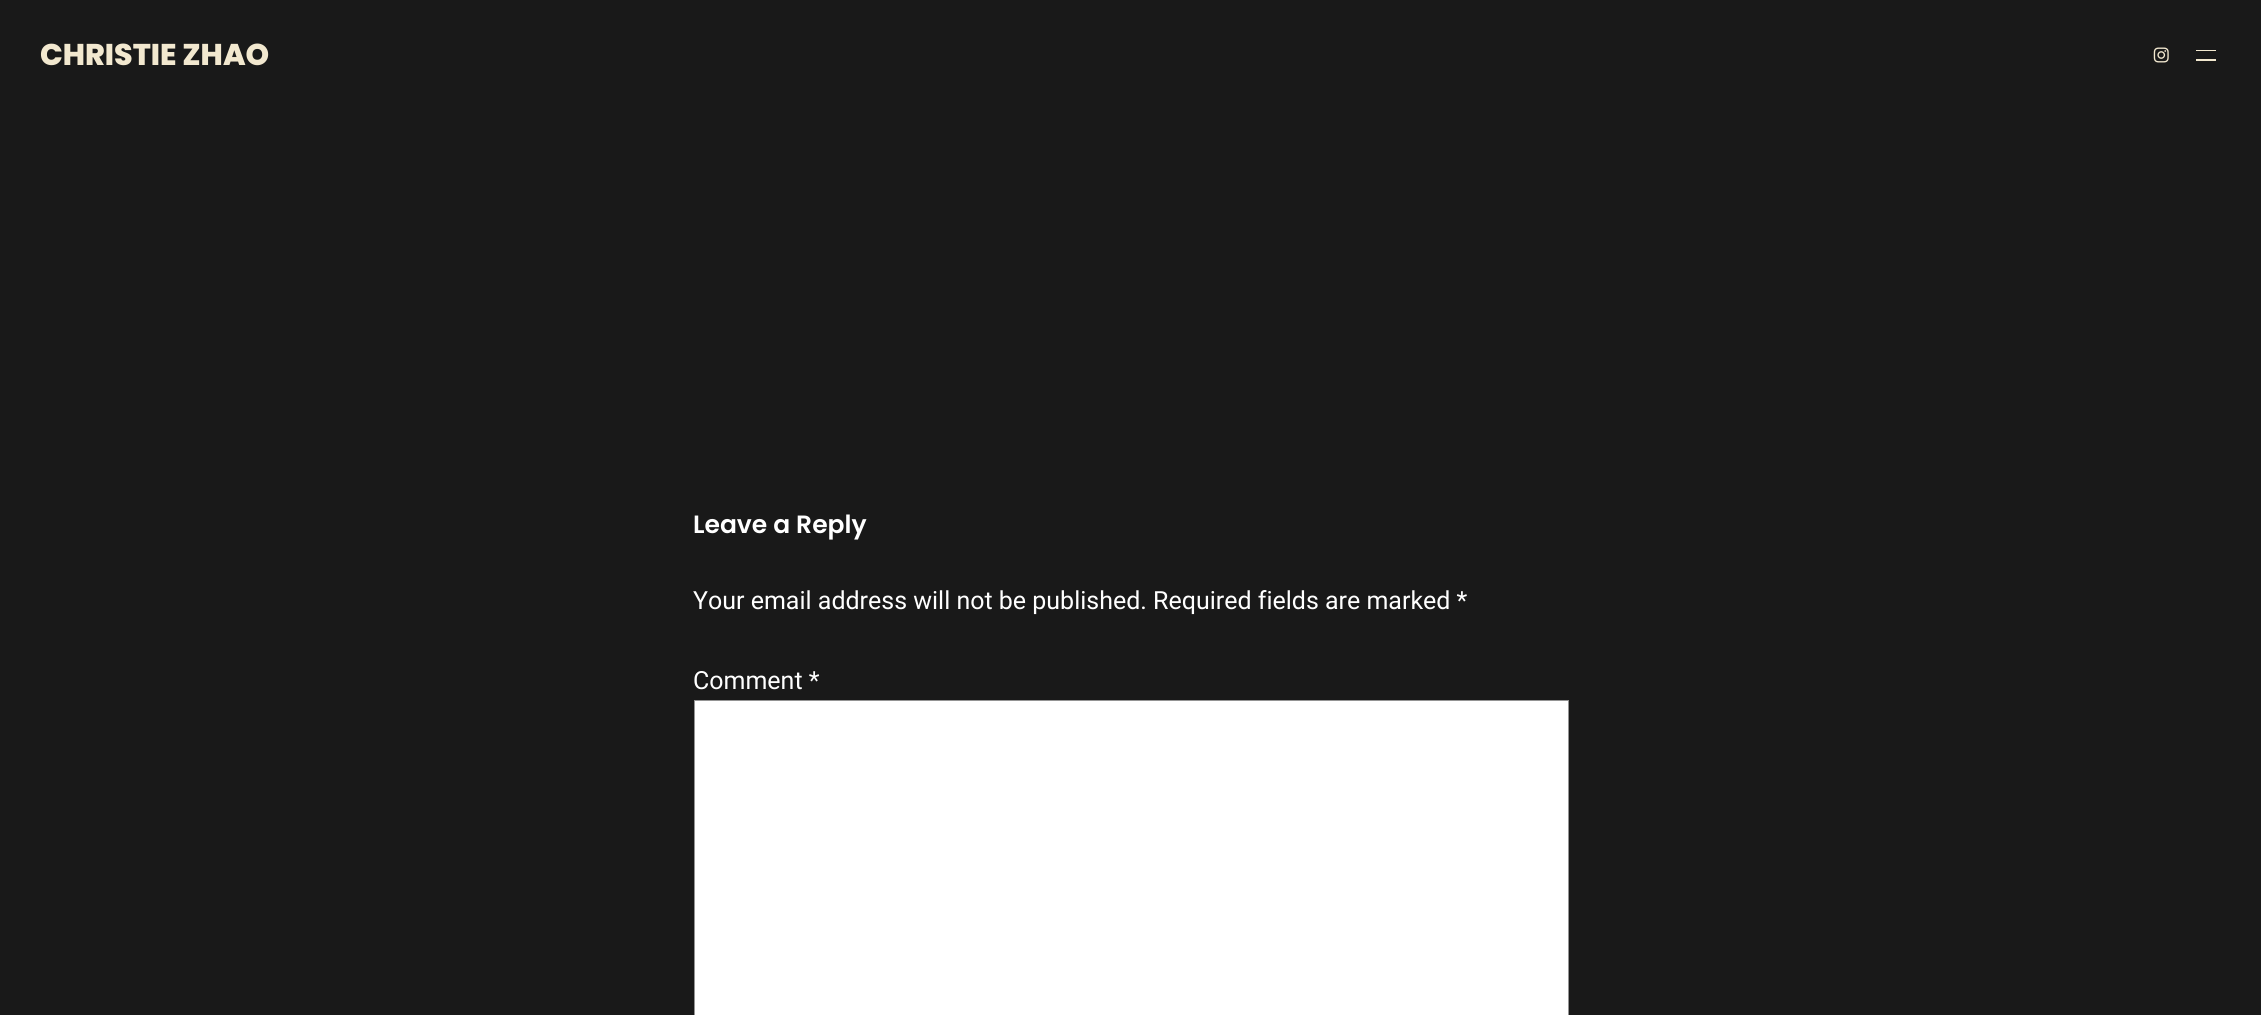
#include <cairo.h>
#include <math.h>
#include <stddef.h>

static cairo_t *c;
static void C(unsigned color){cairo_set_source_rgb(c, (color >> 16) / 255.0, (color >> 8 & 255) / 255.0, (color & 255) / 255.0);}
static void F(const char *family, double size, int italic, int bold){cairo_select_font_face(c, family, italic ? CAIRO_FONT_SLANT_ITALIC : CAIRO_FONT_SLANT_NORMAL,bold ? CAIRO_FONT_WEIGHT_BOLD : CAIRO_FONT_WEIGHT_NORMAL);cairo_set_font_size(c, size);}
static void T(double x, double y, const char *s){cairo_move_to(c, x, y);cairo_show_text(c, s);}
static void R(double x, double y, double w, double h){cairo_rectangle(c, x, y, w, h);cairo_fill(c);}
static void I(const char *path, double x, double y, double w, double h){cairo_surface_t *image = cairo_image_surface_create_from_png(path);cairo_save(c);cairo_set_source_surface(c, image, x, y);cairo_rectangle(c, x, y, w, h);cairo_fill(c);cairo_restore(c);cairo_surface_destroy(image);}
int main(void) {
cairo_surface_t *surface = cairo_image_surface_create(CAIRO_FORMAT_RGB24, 2261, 1015);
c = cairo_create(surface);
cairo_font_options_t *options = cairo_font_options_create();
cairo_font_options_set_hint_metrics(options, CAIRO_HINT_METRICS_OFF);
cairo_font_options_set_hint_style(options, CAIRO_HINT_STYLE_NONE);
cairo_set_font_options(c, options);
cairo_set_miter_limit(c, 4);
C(0x191919);
cairo_paint(c);
F("Poppins ExtraBold",30,0,0);
C(0xf2e8cf);
T(40,65,"CHRISTIE ZHAO");
I("1.png",2153,47,16,16);
R(2196,50,20,1);
R(2196,59,20,2);
F("Poppins SemiBold",25,0,0);
C(0xffffff);
T(693,533,"Leave a Reply");
F("Roboto",25,0,0);
T(693,609,"Your email address will not be published. Required fields are marked *");
T(693,689,"Comment *");
cairo_rectangle(c,694.5,700.5,874,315);
cairo_fill_preserve(c);
C(0x949494);
cairo_set_line_width(c,1);
cairo_stroke(c);
cairo_surface_write_to_png(surface, "o.png");
cairo_font_options_destroy(options);
cairo_destroy(c);
cairo_surface_destroy(surface);
return 0;
}
